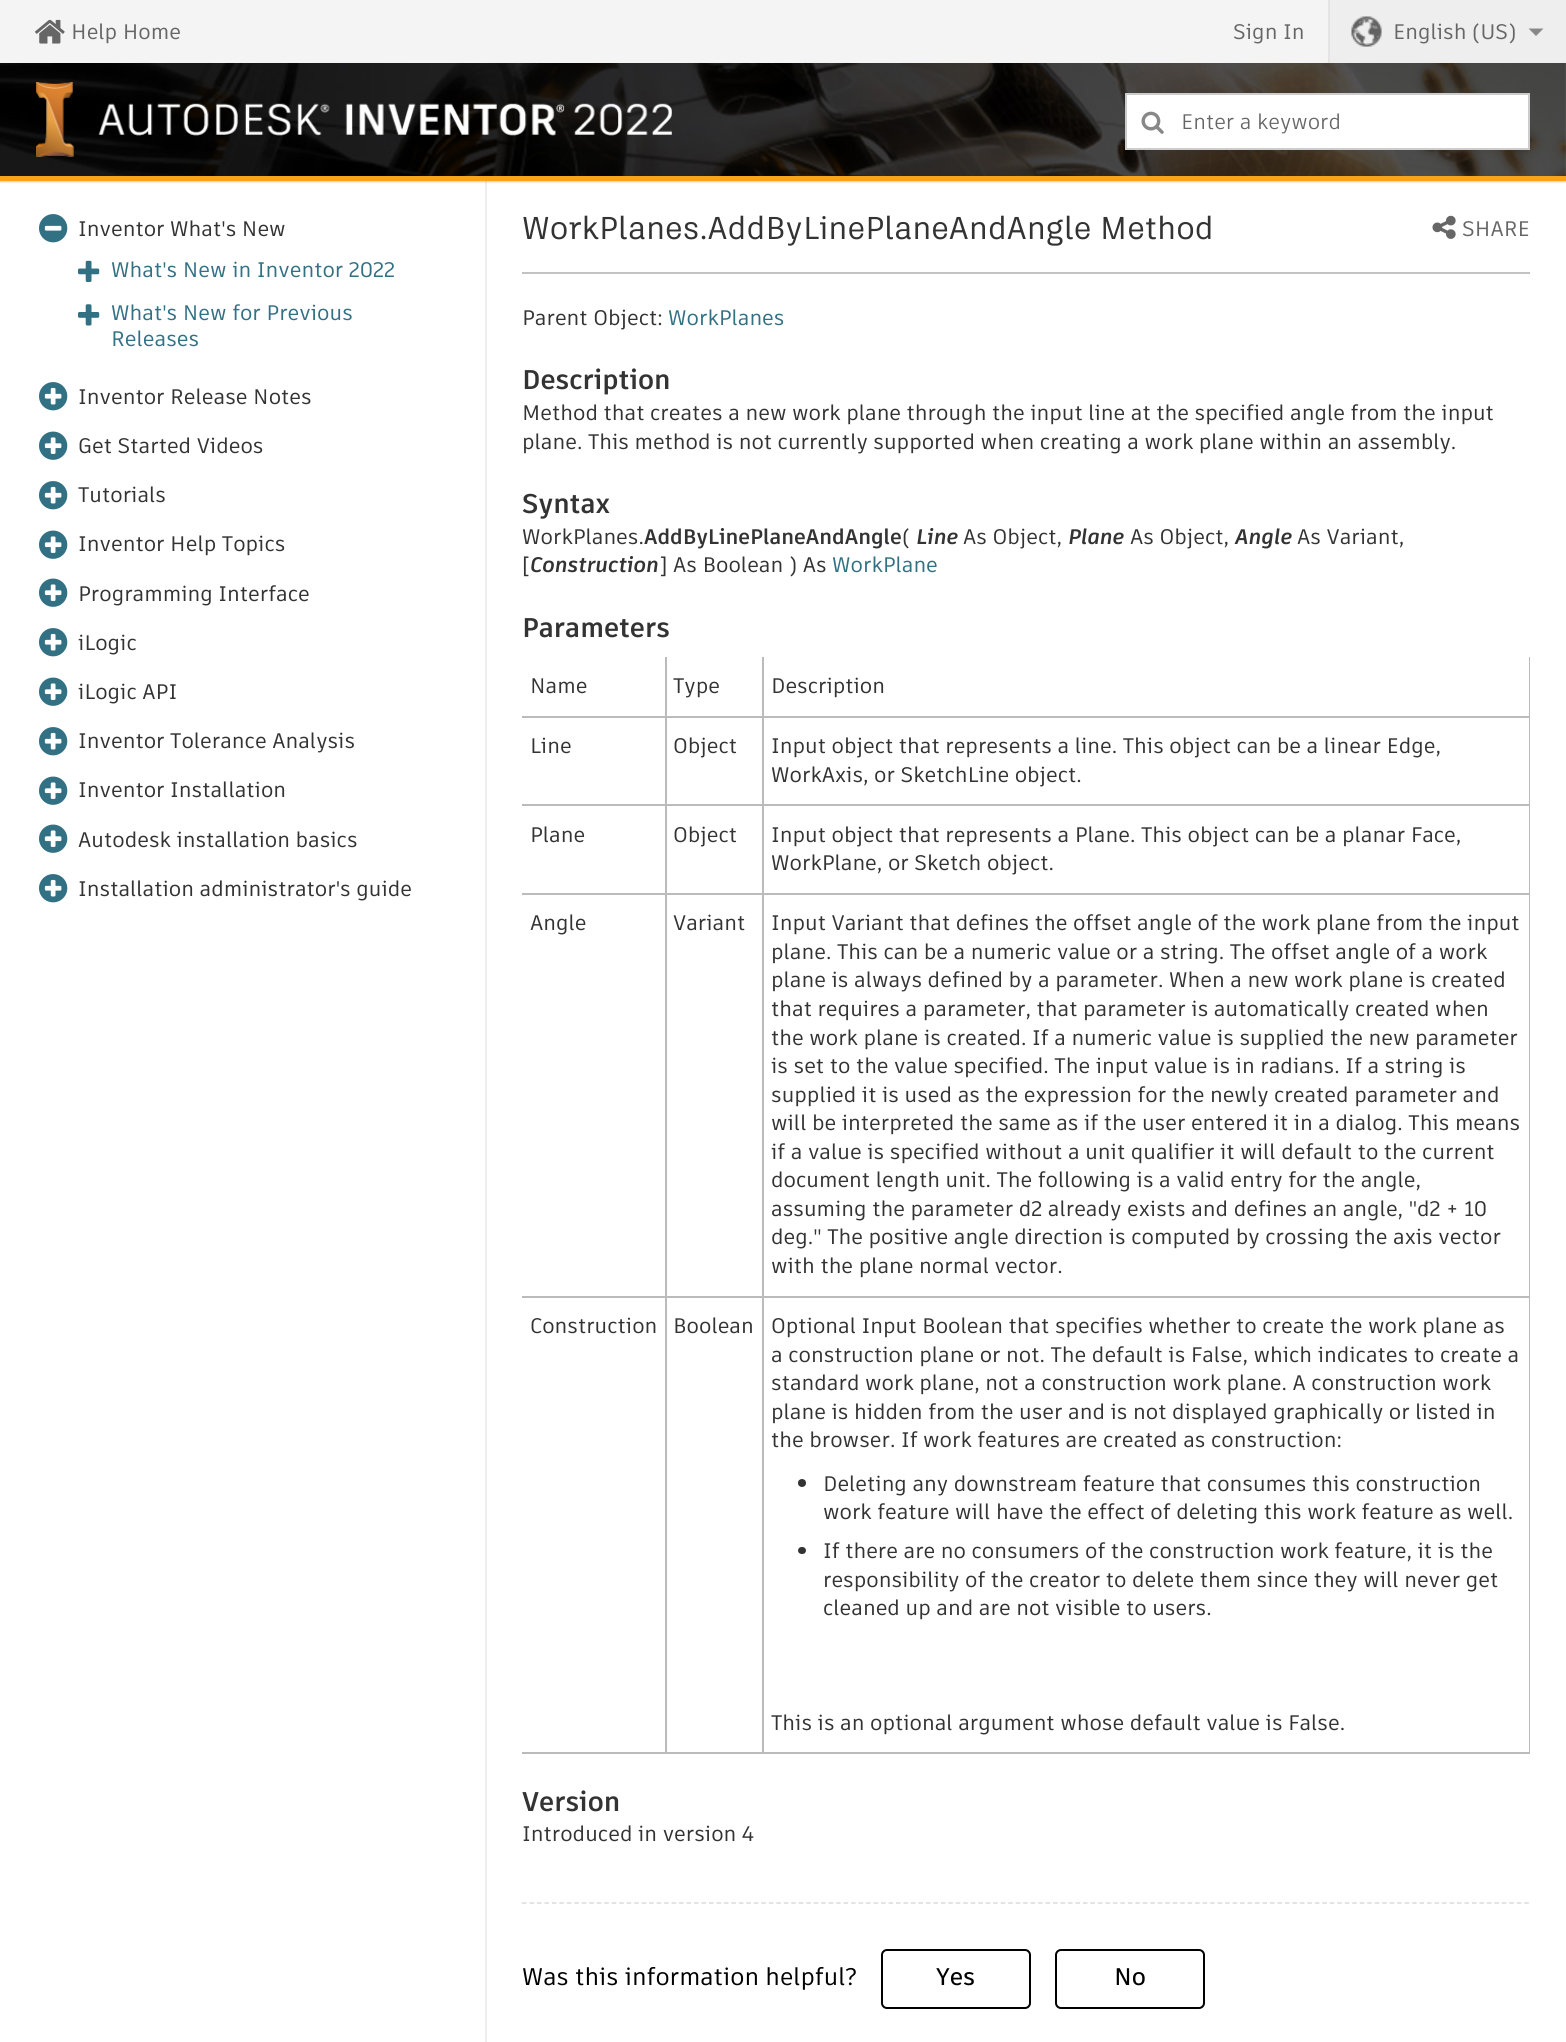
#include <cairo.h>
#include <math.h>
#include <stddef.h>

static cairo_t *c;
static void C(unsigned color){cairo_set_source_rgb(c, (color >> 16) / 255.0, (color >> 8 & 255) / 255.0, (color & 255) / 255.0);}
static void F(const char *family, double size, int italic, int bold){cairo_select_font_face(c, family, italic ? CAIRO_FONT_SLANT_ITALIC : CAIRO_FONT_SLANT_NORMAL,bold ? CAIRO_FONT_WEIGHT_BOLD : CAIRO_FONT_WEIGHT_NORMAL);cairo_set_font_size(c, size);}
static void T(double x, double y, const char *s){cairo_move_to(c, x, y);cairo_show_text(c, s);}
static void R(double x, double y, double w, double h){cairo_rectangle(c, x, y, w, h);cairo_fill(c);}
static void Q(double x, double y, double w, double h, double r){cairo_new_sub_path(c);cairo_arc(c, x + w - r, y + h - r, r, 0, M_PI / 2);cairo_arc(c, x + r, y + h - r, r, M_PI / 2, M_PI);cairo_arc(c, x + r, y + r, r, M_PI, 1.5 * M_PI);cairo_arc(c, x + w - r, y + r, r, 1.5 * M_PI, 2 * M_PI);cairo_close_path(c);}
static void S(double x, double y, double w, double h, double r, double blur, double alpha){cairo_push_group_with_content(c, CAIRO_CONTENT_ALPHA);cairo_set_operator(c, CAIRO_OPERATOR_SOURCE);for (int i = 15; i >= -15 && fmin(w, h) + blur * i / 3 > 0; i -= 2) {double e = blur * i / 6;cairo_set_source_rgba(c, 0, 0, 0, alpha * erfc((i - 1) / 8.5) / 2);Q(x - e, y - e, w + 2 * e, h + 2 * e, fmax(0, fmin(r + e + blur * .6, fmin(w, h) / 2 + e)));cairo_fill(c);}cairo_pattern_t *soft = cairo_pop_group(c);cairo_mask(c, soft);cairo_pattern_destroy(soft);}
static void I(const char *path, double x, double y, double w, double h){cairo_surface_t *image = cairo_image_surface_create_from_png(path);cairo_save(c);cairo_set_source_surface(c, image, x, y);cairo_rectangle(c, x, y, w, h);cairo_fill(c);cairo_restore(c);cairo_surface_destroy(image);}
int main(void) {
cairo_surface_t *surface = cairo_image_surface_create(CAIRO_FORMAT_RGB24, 1566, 2042);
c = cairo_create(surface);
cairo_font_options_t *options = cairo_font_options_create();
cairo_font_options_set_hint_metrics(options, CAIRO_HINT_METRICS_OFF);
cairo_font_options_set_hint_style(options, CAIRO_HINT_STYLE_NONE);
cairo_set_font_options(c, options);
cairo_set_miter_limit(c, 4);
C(0xffffff);
cairo_paint(c);
C(0xeeeeee);
R(485,180,2,1862);
C(0x966110);
S(0,65,1566,117,0,1,.33);
C(0xf4f4f4);
R(0,0,1328,63);
I("1.png",35,19,30,25);
F("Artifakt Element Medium",21,0,0);
C(0x666666);
T(71,39,"Help Home");
T(1233,39,"Sign In");
C(0xeeeeee);
R(1330,0,236,63);
C(0xe4e4e4);
R(1328,0,2,63);
I("2.png",1351,16,31,31);
C(0x666666);
T(1393,39,"English (US)");
C(0x888888);
cairo_new_path(c);
cairo_move_to(c,1528.5,28.5);
cairo_line_to(c,1543.5,28.5);
cairo_line_to(c,1536,36);
cairo_close_path(c);
cairo_fill(c);
I("3.png",0,63,1566,113);
C(0xfaa21b);
R(0,176,1566,5);
I("4.png",36,82,636,75);
C(0xffffff);
cairo_rectangle(c,1126,94,403,55);
cairo_fill_preserve(c);
C(0xcccccc);
cairo_stroke(c);
I("5.png",1141,111,23,23);
F("Artifakt Element",21,0,0);
C(0x666666);
T(1181,129,"Enter a keyword");
I("6.png",39,214,29,29);
F("Artifakt Element Medium",21,0,0);
C(0x333333);
T(78,236,"Inventor What's New");
I("7.png",78,260,22,22);
C(0x327084);
T(111,277,"What's New in Inventor 2022");
I("8.png",78,304,22,22);
T(111,320,"What's New for Previous");
T(111,346,"Releases");
I("9.png",39,382,29,29);
C(0x333333);
T(78,404,"Inventor Release Notes");
I("10.png",39,431,29,29);
T(78,453,"Get Started Videos");
I("9.png",39,481,29,29);
T(78,502,"Tutorials");
I("10.png",39,530,29,29);
T(78,551,"Inventor Help Topics");
I("10.png",39,578,29,29);
T(78,601,"Programming Interface");
I("9.png",39,628,29,29);
T(78,650,"iLogic");
I("10.png",39,677,29,29);
T(78,699,"iLogic API");
I("9.png",39,727,29,29);
T(78,748,"Inventor Tolerance Analysis");
I("10.png",39,776,29,29);
T(78,797,"Inventor Installation");
I("10.png",39,824,29,29);
T(78,847,"Autodesk installation basics");
I("9.png",39,874,29,29);
T(78,896,"Installation administrator's guide");
C(0xc2c2c2);
R(522,272,1008,2);
F("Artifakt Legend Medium",31.5,0,0);
C(0x333333);
T(522,239,"WorkPlanes.AddByLinePlaneAndAngle Method");
F("Artifakt Element Medium",21,0,0);
T(522,325,"Parent Object:");
C(0x327084);
T(668,325,"WorkPlanes");
F("Artifakt Element",27,0,1);
C(0x333333);
T(522,389,"Description");
F("Artifakt Element Medium",21,0,0);
T(522,420,"Method that creates a new work plane through the input line at the specified angle from the input");
T(522,449,"plane. This method is not currently supported when creating a work plane within an assembly.");
F("Artifakt Element",27,0,1);
T(522,513,"Syntax");
F("Artifakt Element Medium",21,0,0);
T(522,544,"WorkPlanes.");
F("Artifakt Element",21,0,1);
T(644,544,"AddByLinePlaneAndAngle");
F("Artifakt Element Medium",21,0,0);
T(902,544,"(");
F("Artifakt Element",21,1,1);
T(916,544,"Line");
F("Artifakt Element Medium",21,0,0);
T(963,544,"As Object,");
F("Artifakt Element",21,1,1);
T(1068,544,"Plane");
F("Artifakt Element Medium",21,0,0);
T(1130,544,"As Object,");
F("Artifakt Element",21,1,1);
T(1235,544,"Angle");
F("Artifakt Element Medium",21,0,0);
T(1297,544,"As Variant,");
T(522,572,"[");
F("Artifakt Element",21,1,1);
T(530,572,"Construction");
F("Artifakt Element Medium",21,0,0);
T(659,572,"] As Boolean ) As");
C(0x327084);
T(832,572,"WorkPlane");
F("Artifakt Element",27,0,1);
C(0x333333);
T(522,637,"Parameters");
C(0xbbbbbb);
R(1529,657,1,1097);
R(762,1752,768,2);
R(762,1296,2,458);
R(762,1296,768,2);
R(762,893,2,405);
R(762,893,768,2);
R(762,804,2,90);
R(762,804,768,2);
R(762,716,2,90);
R(762,716,768,2);
R(762,657,2,60);
R(665,1752,99,2);
R(665,1296,2,458);
R(665,1296,99,2);
R(665,893,2,405);
R(665,893,99,2);
R(665,804,2,90);
R(665,804,99,2);
R(665,716,2,90);
R(665,716,99,2);
R(665,657,2,60);
R(522,716,144,2);
F("Artifakt Element Medium",21,0,0);
C(0x333333);
T(530,693,"Name");
T(673,693,"Type");
T(771,693,"Description");
C(0xbbbbbb);
R(522,804,144,2);
C(0x333333);
T(530,753,"Line");
T(673,753,"Object");
T(771,753,"Input object that represents a line. This object can be a linear Edge,");
T(771,782,"WorkAxis, or SketchLine object.");
C(0xbbbbbb);
R(522,893,144,2);
C(0x333333);
T(530,842,"Plane");
T(673,842,"Object");
T(771,842,"Input object that represents a Plane. This object can be a planar Face,");
T(771,870,"WorkPlane, or Sketch object.");
C(0xbbbbbb);
R(522,1296,144,2);
C(0x333333);
T(530,930,"Angle");
T(673,930,"Variant");
T(771,930,"Input Variant that defines the offset angle of the work plane from the input");
T(771,959,"plane. This can be a numeric value or a string. The offset angle of a work");
T(771,987,"plane is always defined by a parameter. When a new work plane is created");
T(771,1016,"that requires a parameter, that parameter is automatically created when");
T(771,1045,"the work plane is created. If a numeric value is supplied the new parameter");
T(771,1073,"is set to the value specified. The input value is in radians. If a string is");
T(771,1102,"supplied it is used as the expression for the newly created parameter and");
T(771,1130,"will be interpreted the same as if the user entered it in a dialog. This means");
T(771,1159,"if a value is specified without a unit qualifier it will default to the current");
T(771,1187,"document length unit. The following is a valid entry for the angle,");
T(771,1216,"assuming the parameter d2 already exists and defines an angle, \"d2 + 10");
T(771,1244,"deg.\" The positive angle direction is computed by crossing the axis vector");
T(771,1273,"with the plane normal vector.");
C(0xbbbbbb);
R(522,1752,144,2);
C(0x333333);
T(530,1333,"Construction");
T(673,1333,"Boolean");
T(771,1333,"Optional Input Boolean that specifies whether to create the work plane as");
T(771,1362,"a construction plane or not. The default is False, which indicates to create a");
T(771,1390,"standard work plane, not a construction work plane. A construction work");
T(771,1419,"plane is hidden from the user and is not displayed graphically or listed in");
T(771,1447,"the browser. If work features are created as construction:");
cairo_new_path(c);
cairo_arc(c,802,1483,4,0,2 * M_PI);
cairo_fill(c);
T(823,1491,"Deleting any downstream feature that consumes this construction");
T(823,1519,"work feature will have the effect of deleting this work feature as well.");
Q(798,1547,8,7,3.5);
cairo_fill(c);
T(823,1558,"If there are no consumers of the construction work feature, it is the");
T(823,1587,"responsibility of the creator to delete them since they will never get");
T(823,1615,"cleaned up and are not visible to users.");
T(771,1730,"This is an optional argument whose default value is False.");
F("Artifakt Element",27,0,1);
T(522,1811,"Version");
F("Artifakt Element Medium",21,0,0);
T(522,1841,"Introduced in version 4");
I("11.png",1432,215,24,24);
C(0x666666);
T(1462,236,"SHARE");
cairo_new_path(c);
cairo_move_to(c,522,1903);
cairo_line_to(c,1530,1903);
C(0xdadada);
cairo_set_line_width(c,1.5);
cairo_set_dash(c,(double[]){4.5,2.98},2,0);
cairo_stroke(c);
F("Artifakt Element Medium",24,0,0);
C(0x000000);
T(522,1985,"Was this information helpful?");
Q(882,1950,148,58,5);
cairo_set_line_width(c,2);
cairo_set_dash(c,NULL,0,0);
cairo_stroke(c);
F("Artifakt Element SemiBold",24,0,0);
T(936,1985,"Yes");
Q(1056,1950,148,58,5);
cairo_stroke(c);
T(1114,1985,"No");
cairo_surface_write_to_png(surface, "o.png");
cairo_font_options_destroy(options);
cairo_destroy(c);
cairo_surface_destroy(surface);
return 0;
}
